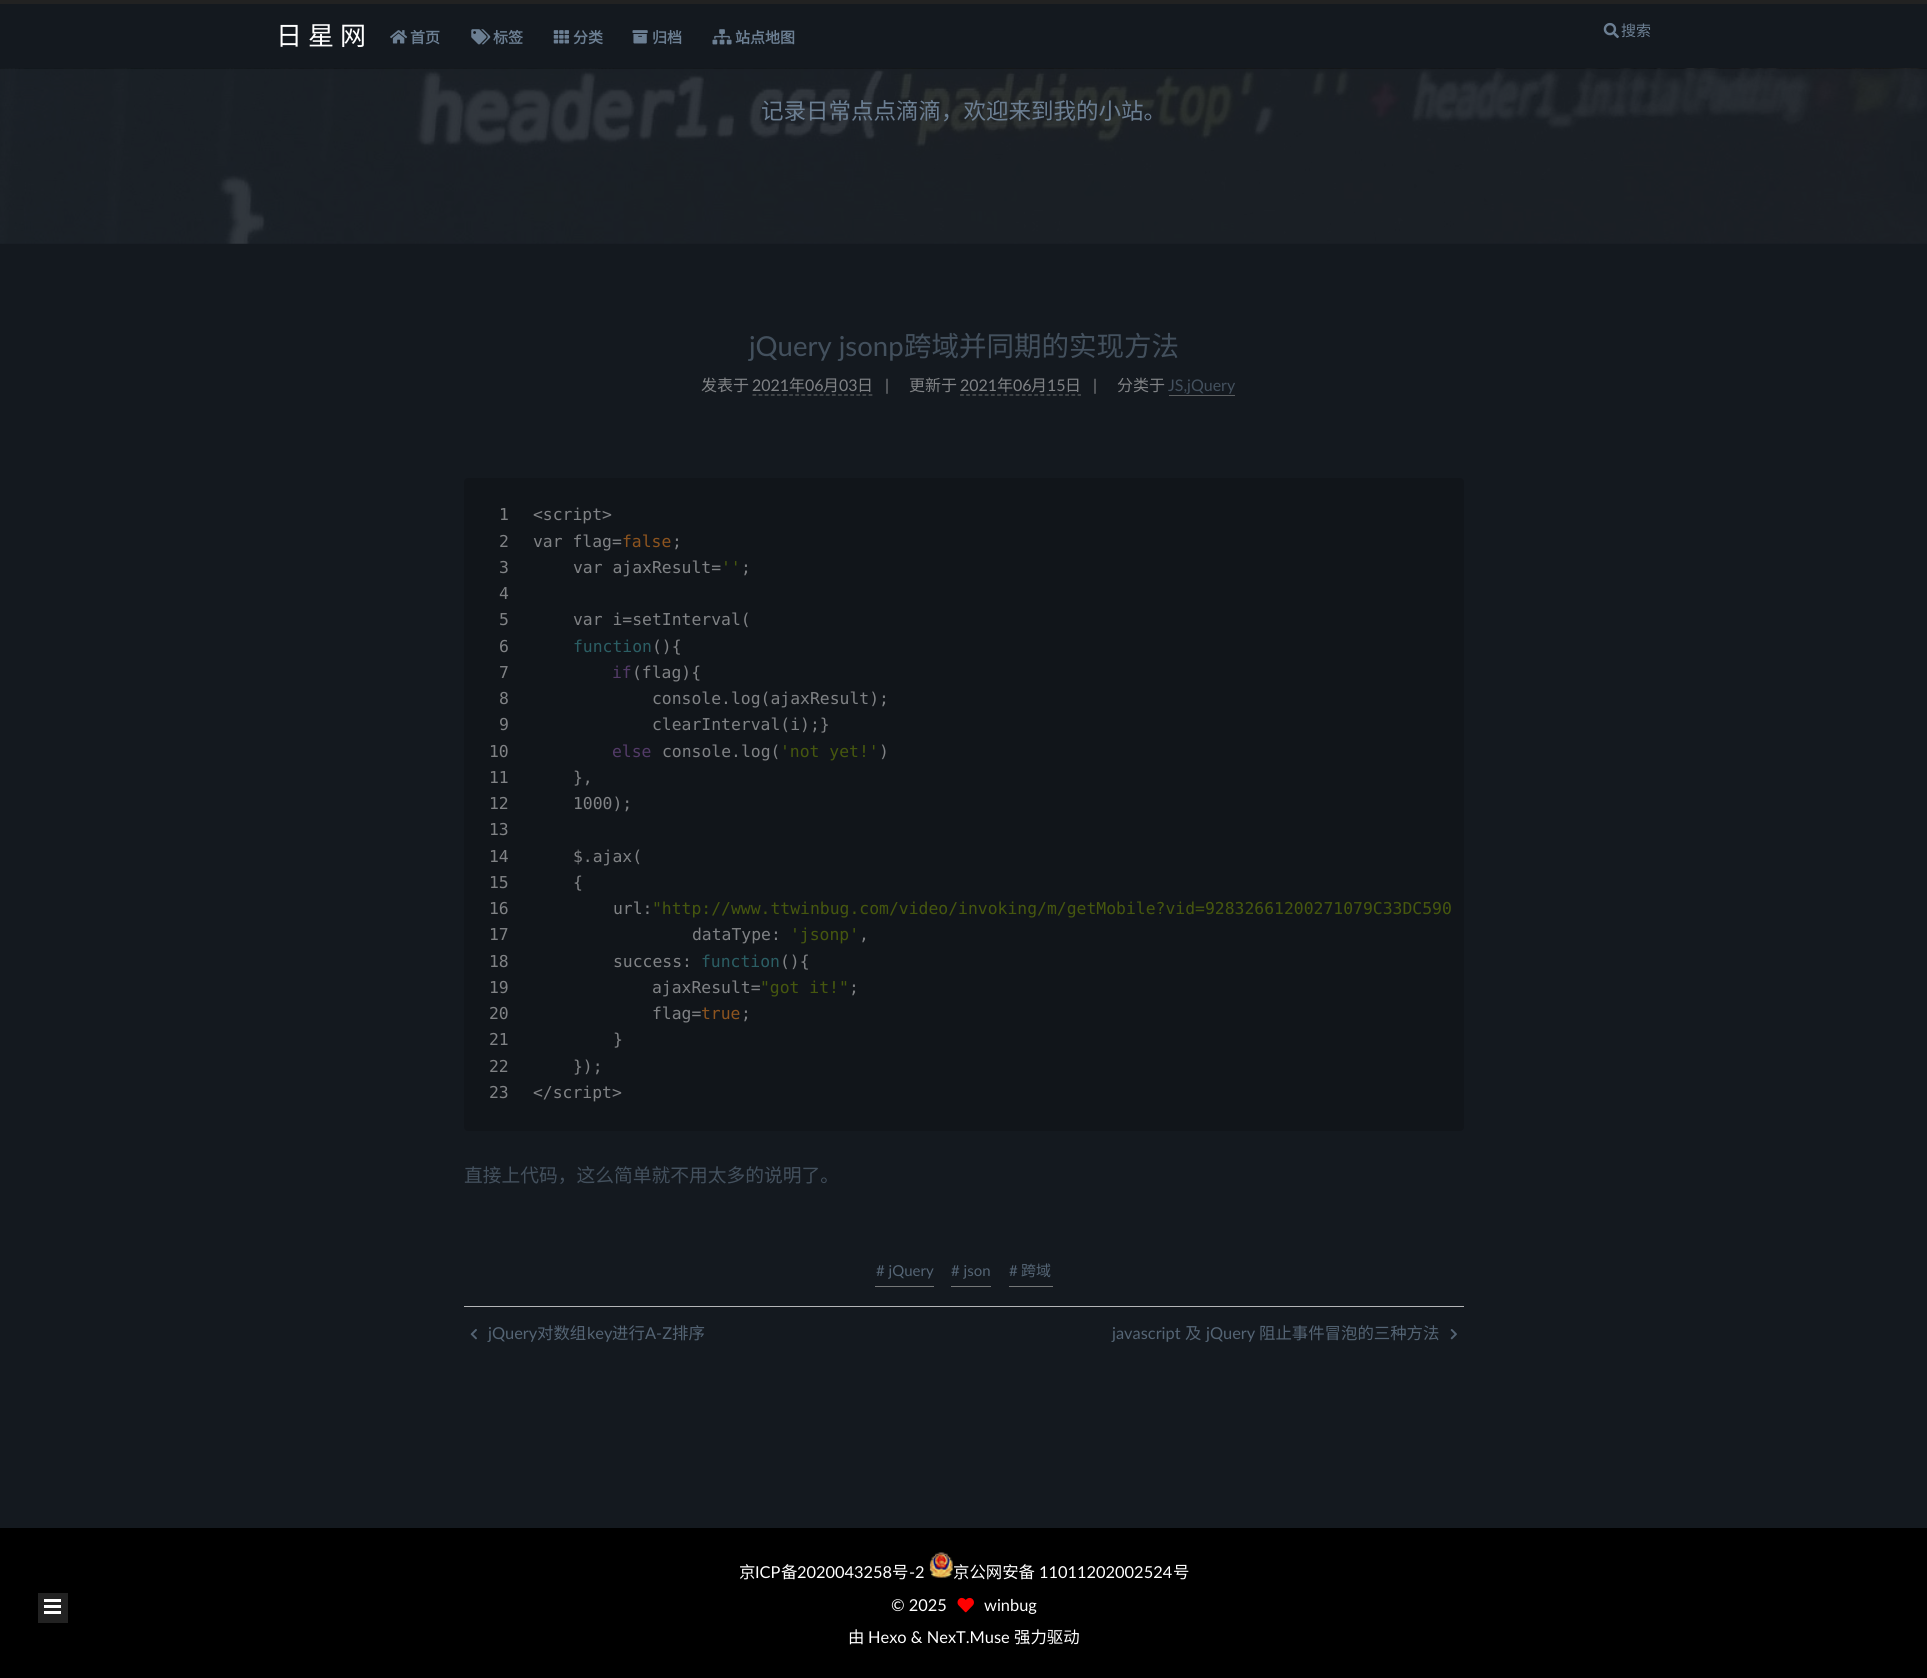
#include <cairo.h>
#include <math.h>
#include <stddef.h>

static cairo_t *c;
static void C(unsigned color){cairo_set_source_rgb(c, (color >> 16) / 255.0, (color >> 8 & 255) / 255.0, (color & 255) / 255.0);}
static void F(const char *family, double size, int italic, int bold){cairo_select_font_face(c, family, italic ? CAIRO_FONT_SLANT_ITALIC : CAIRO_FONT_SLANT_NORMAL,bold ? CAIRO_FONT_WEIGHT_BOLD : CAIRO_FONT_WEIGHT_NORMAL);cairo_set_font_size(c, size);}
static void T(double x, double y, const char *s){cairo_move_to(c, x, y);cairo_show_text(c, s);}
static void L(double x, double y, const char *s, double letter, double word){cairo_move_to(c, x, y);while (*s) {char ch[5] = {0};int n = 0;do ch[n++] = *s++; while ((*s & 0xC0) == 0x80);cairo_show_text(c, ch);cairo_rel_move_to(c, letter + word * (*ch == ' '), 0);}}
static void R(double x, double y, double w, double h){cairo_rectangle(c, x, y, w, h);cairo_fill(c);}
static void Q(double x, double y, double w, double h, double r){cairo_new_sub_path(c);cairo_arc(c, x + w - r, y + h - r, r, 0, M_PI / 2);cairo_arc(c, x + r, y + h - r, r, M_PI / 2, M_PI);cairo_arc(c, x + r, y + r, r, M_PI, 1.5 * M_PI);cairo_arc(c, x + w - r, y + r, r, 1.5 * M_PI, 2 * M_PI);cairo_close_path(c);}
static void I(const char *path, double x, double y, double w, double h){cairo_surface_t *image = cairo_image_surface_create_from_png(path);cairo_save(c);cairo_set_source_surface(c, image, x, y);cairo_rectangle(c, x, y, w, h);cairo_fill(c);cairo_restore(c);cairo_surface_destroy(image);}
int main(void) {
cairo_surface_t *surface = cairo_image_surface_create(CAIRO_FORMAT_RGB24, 1927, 1678);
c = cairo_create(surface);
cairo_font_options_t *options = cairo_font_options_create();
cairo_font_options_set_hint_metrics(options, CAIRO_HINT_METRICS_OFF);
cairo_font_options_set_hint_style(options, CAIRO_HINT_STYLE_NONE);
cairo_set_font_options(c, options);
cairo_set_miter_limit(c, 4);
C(0x14191f);
cairo_paint(c);
C(0x222222);
R(0,0,1927,4);
F("Noto Sans CJK SC",26,0,0);
C(0xffffff);
L(276,45,"日星网",6,0);
I("1.png",390,30,18,14);
F("Noto Sans CJK SC",15,0,1);
C(0x6c7f93);
T(410,43,"首页");
I("2.png",471,29,20,16);
T(493,43,"标签");
I("3.png",553,30,16,14);
T(573,43,"分类");
I("4.png",632,30,16,14);
T(652,43,"归档");
I("5.png",712,29,20,16);
T(735,43,"站点地图");
I("6.png",1603,22,16,17);
F("Noto Sans CJK SC",15,0,0);
T(1621,36,"搜索");
I("7.png",0,68,1927,176);
F("Noto Sans CJK SC",22.5,0,0);
T(761,119,"记录日常点点滴滴，欢迎来到我的小站。");
F("Lato",27.5,0,0);
C(0x43505d);
T(749,356,"jQuery jsonp");
F("Noto Sans CJK SC",27.5,0,0);
T(904,356,"跨域并同期的实现方法");
F("Noto Sans CJK SC",16,0,0);
C(0x808285);
T(701,391,"发表于");
F("Lato",16,0,0);
T(752,391,"2021");
cairo_new_path(c);
cairo_move_to(c,752.5,395);
cairo_line_to(c,872.5,395);
C(0x5b5e60);
cairo_set_line_width(c,1.2);
cairo_set_dash(c,(double[]){3.75,2.36},2,0);
cairo_stroke(c);
F("Noto Sans CJK SC",16,0,0);
C(0x808285);
T(789,391,"年");
F("Lato",16,0,0);
T(805,391,"06");
F("Noto Sans CJK SC",16,0,0);
T(823,391,"月");
F("Lato",16,0,0);
T(839,391,"03");
F("Noto Sans CJK SC",16,0,0);
T(857,391,"日");
F("Lato",16,0,0);
T(885,391,"|");
F("Noto Sans CJK SC",16,0,0);
T(909,391,"更新于");
F("Lato",16,0,0);
T(960,391,"2021");
cairo_new_path(c);
cairo_move_to(c,960,395);
cairo_line_to(c,1081,395);
C(0x5b5e60);
cairo_set_dash(c,(double[]){3.75,2.44},2,0);
cairo_stroke(c);
F("Noto Sans CJK SC",16,0,0);
C(0x808285);
T(997,391,"年");
F("Lato",16,0,0);
T(1013,391,"06");
F("Noto Sans CJK SC",16,0,0);
T(1031,391,"月");
F("Lato",16,0,0);
T(1047,391,"15");
F("Noto Sans CJK SC",16,0,0);
T(1065,391,"日");
F("Lato",16,0,0);
T(1093,391,"|");
F("Noto Sans CJK SC",16,0,0);
T(1117,391,"分类于");
F("Lato",16,0,0);
C(0x43505d);
T(1168,391,"JS,jQuery");
C(0x5b5e60);
R(1169,395,66,1);
C(0x11151a);
Q(464,478,1000,653,4);
cairo_fill(c);
F("DejaVu Sans Mono",16.4,0,0);
C(0x808285);
T(499,520,"1");
T(499,547,"2");
T(499,573,"3");
T(499,599,"4");
T(499,625,"5");
T(499,652,"6");
T(499,678,"7");
T(499,704,"8");
T(499,730,"9");
T(489,757,"10");
T(489,783,"11");
T(489,809,"12");
T(489,835,"13");
T(489,862,"14");
T(489,888,"15");
T(489,914,"16");
T(489,940,"17");
T(489,967,"18");
T(489,993,"19");
T(489,1019,"20");
T(489,1045,"21");
T(489,1072,"22");
T(489,1098,"23");
T(533,520,"<script>");
T(533,547,"var flag=");
C(0x8d541f);
T(622,547,"false");
C(0x808285);
T(672,547,";");
T(573,573,"var ajaxResult=");
C(0x46570e);
T(721,573,"''");
C(0x808285);
T(741,573,";");
T(573,625,"var i=setInterval(");
C(0x2b5e64);
T(573,652,"function");
C(0x808285);
T(652,652,"(){");
C(0x533b68);
T(612,678,"if");
C(0x808285);
T(632,678,"(flag){");
T(652,704,"console.log(ajaxResult);");
T(652,730,"clearInterval(i);}");
C(0x533b68);
T(612,757,"else");
C(0x808285);
T(662,757,"console.log(");
C(0x46570e);
T(780,757,"'not yet!'");
C(0x808285);
T(879,757,")");
T(573,783,"},");
T(573,809,"1000);");
T(573,862,"$.ajax(");
T(573,888,"{");
T(613,914,"url:");
C(0x46570e);
T(652,914,"\"http://www.ttwinbug.com/video/invoking/m/getMobile?vid=92832661200271079C33DC590");
C(0x808285);
T(692,940,"dataType:");
C(0x46570e);
T(790,940,"'jsonp'");
C(0x808285);
T(859,940,",");
T(613,967,"success:");
C(0x2b5e64);
T(701,967,"function");
C(0x808285);
T(780,967,"(){");
T(652,993,"ajaxResult=");
C(0x46570e);
T(760,993,"\"got it!\"");
C(0x808285);
T(849,993,";");
T(652,1019,"flag=");
C(0x8d541f);
T(701,1019,"true");
C(0x808285);
T(741,1019,";");
T(613,1045,"}");
T(573,1072,"});");
T(533,1098,"</script>");
F("Noto Sans CJK SC",18.75,0,0);
C(0x43505d);
T(464,1182,"直接上代码，这么简单就不用太多的说明了。");
C(0x757778);
R(875,1286,59,1);
F("Lato",15,0,0);
C(0x546474);
T(876,1276,"# jQuery");
C(0x757778);
R(951,1286,40,1);
C(0x546474);
T(951,1276,"# json");
C(0x757778);
R(1009,1286,44,1);
C(0x546474);
T(1009,1276,"#");
F("Noto Sans CJK SC",15,0,0);
T(1021,1276,"跨域");
C(0xb4b5b7);
R(464,1306,1000,1);
I("8.png",470,1329,7,11);
F("Lato",16.4,0,0);
C(0x546474);
T(488,1339,"jQuery");
F("Noto Sans CJK SC",16.4,0,0);
T(537,1339,"对数组");
F("Lato",16.4,0,0);
T(587,1339,"key");
F("Noto Sans CJK SC",16.4,0,0);
T(612,1339,"进行");
F("Lato",16.4,0,0);
T(645,1339,"A-Z");
F("Noto Sans CJK SC",16.4,0,0);
T(672,1339,"排序");
F("Lato",16.4,0,0);
T(1112,1339,"javascript");
F("Noto Sans CJK SC",16.4,0,0);
T(1185,1339,"及");
F("Lato",16.4,0,0);
T(1206,1339,"jQuery");
F("Noto Sans CJK SC",16.4,0,0);
T(1259,1339,"阻止事件冒泡的三种方法");
I("9.png",1450,1329,7,11);
C(0x000000);
R(0,1528,1927,150);
C(0x222222);
R(38,1593,30,30);
C(0xffffff);
R(44,1599,17,3);
R(44,1605,17,3);
R(44,1611,17,3);
T(739,1578,"京");
F("Lato",16.4,0,0);
T(755,1578,"ICP");
F("Noto Sans CJK SC",16.4,0,0);
T(781,1578,"备");
F("Lato",16.4,0,0);
T(797,1578,"2020043258");
F("Noto Sans CJK SC",16.4,0,0);
T(892,1578,"号");
F("Lato",16.4,0,0);
T(909,1578,"-2");
I("10.png",929,1552,24,26);
F("Noto Sans CJK SC",16.4,0,0);
T(953,1578,"京公网安备");
F("Lato",16.4,0,0);
T(1039,1578,"11011202002524");
F("Noto Sans CJK SC",16.4,0,0);
T(1173,1578,"号");
F("Lato",16.4,0,0);
T(891,1611,"© 2025");
I("11.png",957,1597,17,16);
T(984,1611,"winbug");
F("Noto Sans CJK SC",16.4,0,0);
T(848,1643,"由");
F("Lato",16.4,0,0);
T(868,1643,"Hexo & NexT.Muse");
F("Noto Sans CJK SC",16.4,0,0);
T(1014,1643,"强力驱动");
cairo_surface_write_to_png(surface, "o.png");
cairo_font_options_destroy(options);
cairo_destroy(c);
cairo_surface_destroy(surface);
return 0;
}
